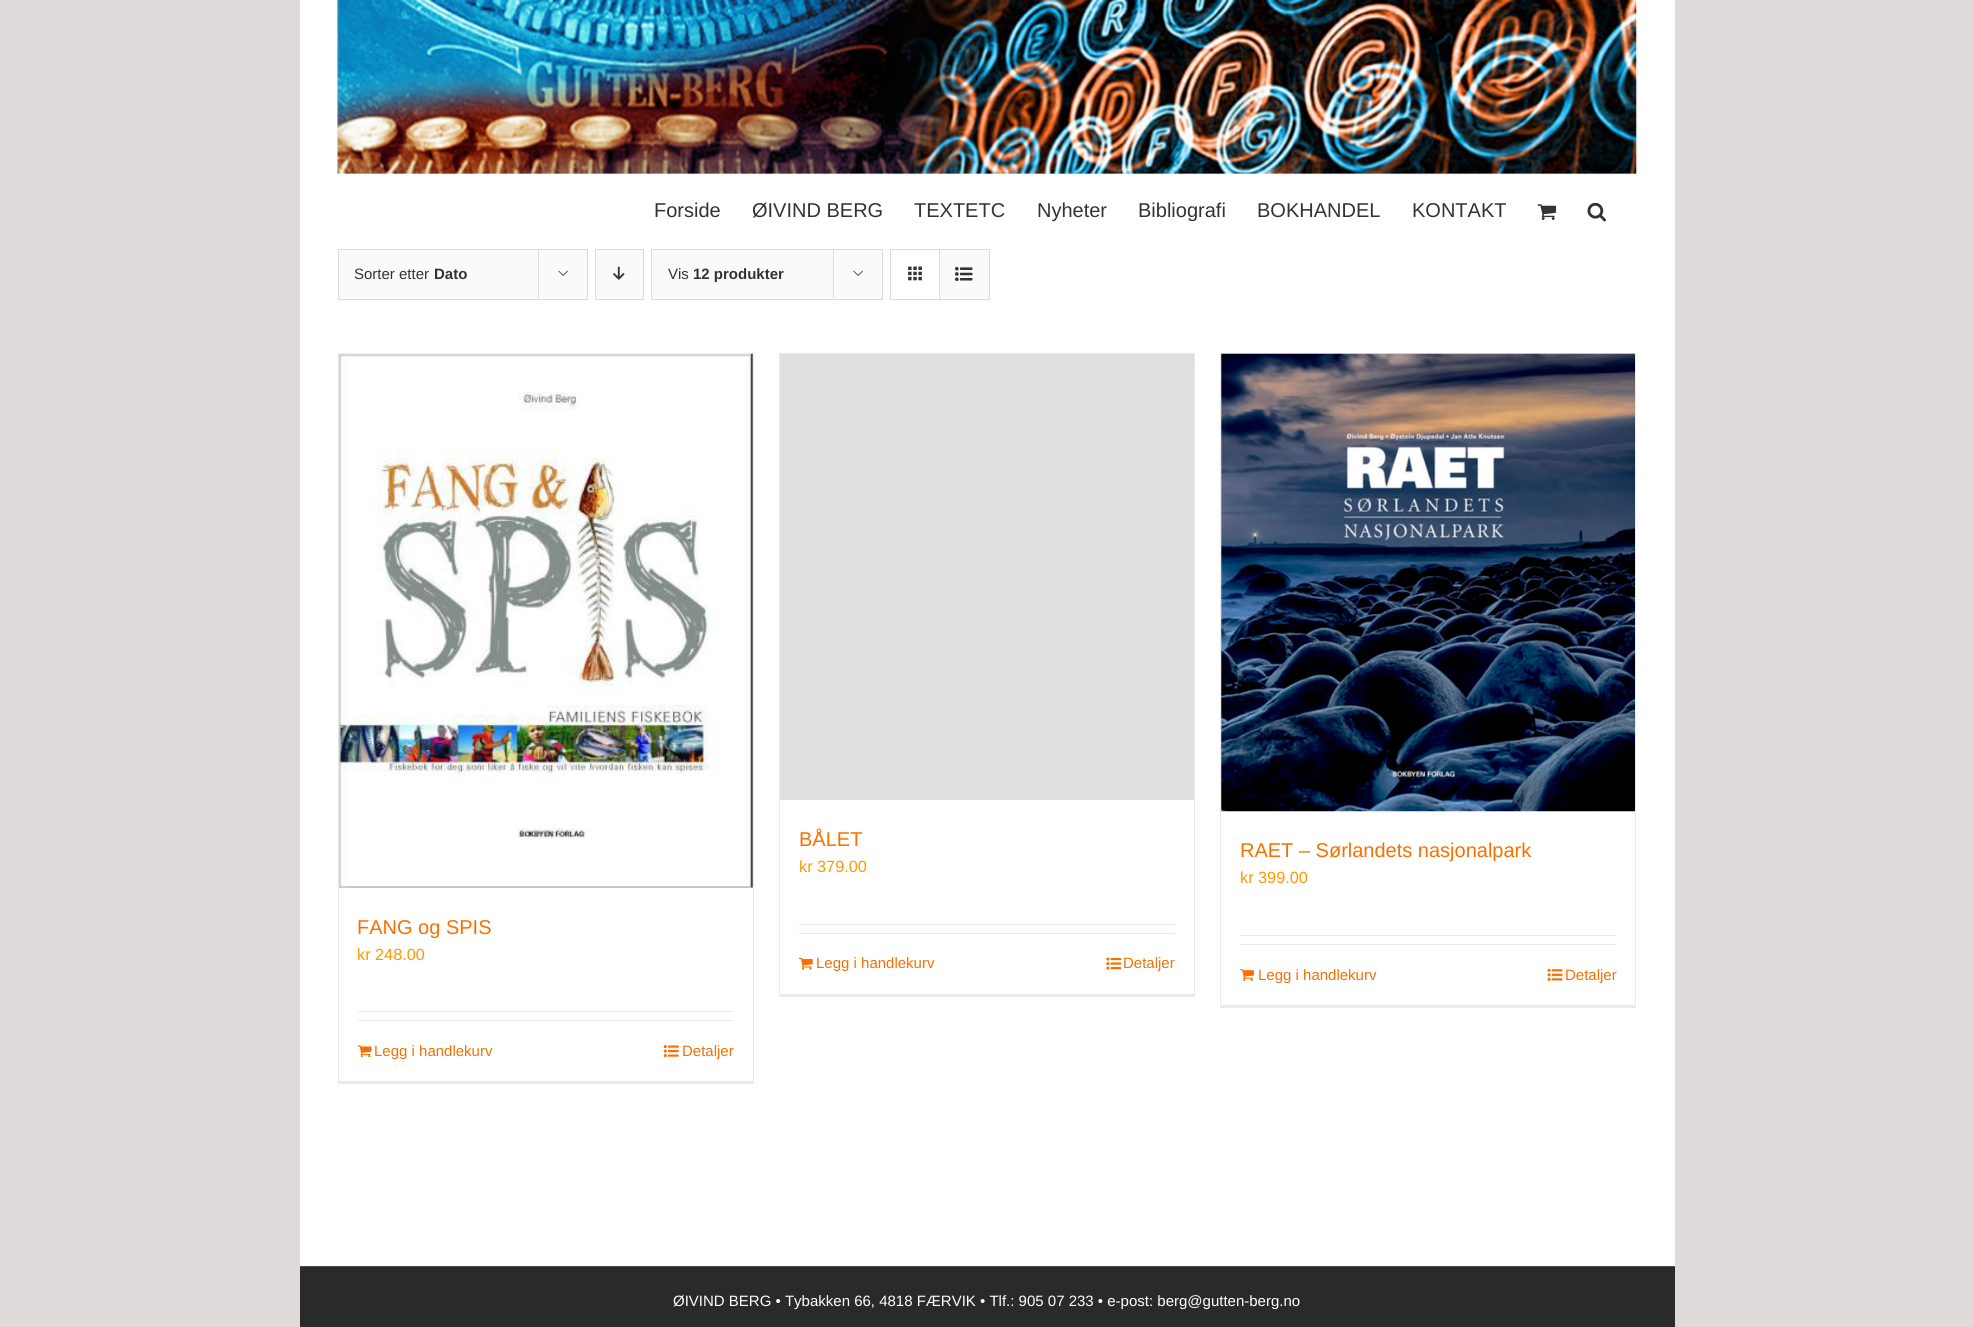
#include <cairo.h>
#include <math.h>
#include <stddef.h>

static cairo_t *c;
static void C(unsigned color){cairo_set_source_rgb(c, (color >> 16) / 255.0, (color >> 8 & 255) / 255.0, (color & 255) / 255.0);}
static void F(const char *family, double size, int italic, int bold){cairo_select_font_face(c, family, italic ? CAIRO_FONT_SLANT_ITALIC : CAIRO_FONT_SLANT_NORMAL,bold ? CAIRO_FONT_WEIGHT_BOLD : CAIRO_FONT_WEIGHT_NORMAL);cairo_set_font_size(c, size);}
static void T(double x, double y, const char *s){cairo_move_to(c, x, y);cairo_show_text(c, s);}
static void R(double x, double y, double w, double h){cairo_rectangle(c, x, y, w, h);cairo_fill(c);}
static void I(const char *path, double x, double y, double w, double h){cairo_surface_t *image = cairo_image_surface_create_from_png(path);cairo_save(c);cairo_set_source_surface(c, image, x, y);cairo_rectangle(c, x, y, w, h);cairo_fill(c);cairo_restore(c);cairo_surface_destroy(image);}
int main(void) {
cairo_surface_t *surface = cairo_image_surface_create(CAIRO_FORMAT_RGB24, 1973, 1327);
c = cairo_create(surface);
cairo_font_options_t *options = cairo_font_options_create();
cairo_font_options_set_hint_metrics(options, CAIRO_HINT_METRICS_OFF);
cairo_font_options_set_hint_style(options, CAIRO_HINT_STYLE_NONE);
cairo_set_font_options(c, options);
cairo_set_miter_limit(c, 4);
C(0xe0dbdb);
cairo_paint(c);
C(0xffffff);
R(300,0,1375,1266);
I("1.png",337,0,1301,174);
F("Liberation Sans",20,0,0);
C(0x333333);
T(654,217,"Forside");
T(752,217,"ØIVIND BERG");
T(914,217,"TEXTETC");
T(1037,217,"Nyheter");
T(1138,217,"Bibliografi");
T(1257,217,"BOKHANDEL");
T(1412,217,"KONTAKT");
I("2.png",1537,204,20,16);
I("3.png",1587,202,19,20);
C(0xfbfaf9);
cairo_rectangle(c,338.5,249.5,249,50);
cairo_fill_preserve(c);
C(0xdbdbdb);
cairo_set_line_width(c,1);
cairo_stroke(c);
F("Liberation Sans",15,0,0);
C(0x333333);
T(354,279,"Sorter etter");
F("Liberation Sans",15,0,1);
T(434,279,"Dato");
C(0xdbdbdb);
R(538,249,1,49);
I("4.png",558,270,10,6);
C(0xfbfaf9);
cairo_rectangle(c,595.5,249.5,48,50);
cairo_fill_preserve(c);
C(0xdbdbdb);
cairo_stroke(c);
I("5.png",613,266,12,14);
C(0xfbfaf9);
cairo_rectangle(c,651.5,249.5,231,50);
cairo_fill_preserve(c);
C(0xdbdbdb);
cairo_stroke(c);
F("Liberation Sans",15,0,0);
C(0x333333);
T(668,279,"Vis");
F("Liberation Sans",15,0,1);
T(693,279,"12 produkter");
C(0xdbdbdb);
R(833,249,1,49);
I("4.png",853,270,10,6);
cairo_rectangle(c,890.5,249.5,99,50);
cairo_stroke(c);
R(939,250,1,49);
I("6.png",908,266,14,15);
C(0xfbfaf9);
R(940,250,49,49);
I("7.png",955,266,18,16);
C(0xebeaea);
R(338,353,416,1);
R(753,353,1,731);
R(338,1081,416,3);
R(338,353,1,731);
C(0xe0dede);
R(339,354,414,534);
I("8.png",338,353,415,535);
F("Liberation Sans",20,0,0);
C(0xf96f00);
T(357,934,"FANG og SPIS");
F("Liberation Sans",16.25,0,0);
C(0xff9800);
T(357,960,"kr 248.00");
C(0xebeaea);
R(358,1011,376,1);
R(358,1020,376,1);
I("9.png",357,1045,15,13);
F("Liberation Sans",15,0,0);
C(0xf96f00);
T(374,1056,"Legg i handlekurv");
I("10.png",663,1045,16,13);
T(682,1056,"Detaljer");
C(0xebeaea);
R(779,353,416,1);
R(1194,353,1,643);
R(779,994,416,3);
R(779,353,1,643);
C(0xe0dede);
R(780,354,414,446);
F("Liberation Sans",20,0,0);
C(0xf96f00);
T(799,846,"BÅLET");
F("Liberation Sans",16.25,0,0);
C(0xff9800);
T(799,872,"kr 379.00");
C(0xebeaea);
R(799,924,376,1);
R(799,933,376,1);
I("11.png",798,957,15,13);
F("Liberation Sans",15,0,0);
C(0xf96f00);
T(816,968,"Legg i handlekurv");
I("12.png",1106,957,16,13);
T(1123,968,"Detaljer");
C(0xebeaea);
R(1220,353,416,1);
R(1635,353,1,655);
R(1220,1005,416,3);
R(1220,353,1,655);
I("13.png",1221,353,414,459);
F("Liberation Sans",20,0,0);
C(0xf96f00);
T(1240,857,"RAET – Sørlandets nasjonalpark");
F("Liberation Sans",16.25,0,0);
C(0xff9800);
T(1240,883,"kr 399.00");
C(0xebeaea);
R(1240,935,376,1);
R(1240,944,376,1);
I("14.png",1240,969,14,12);
F("Liberation Sans",15,0,0);
C(0xf96f00);
T(1258,980,"Legg i handlekurv");
I("15.png",1547,968,16,13);
T(1565,980,"Detaljer");
C(0x282a2b);
R(300,1267,1375,60);
C(0x4b4c4d);
R(300,1266,1375,1);
C(0xffffff);
T(673,1306,"ØIVIND BERG • Tybakken 66, 4818 FÆRVIK • Tlf.: 905 07 233 • e-post: berg@gutten-berg.no");
cairo_surface_write_to_png(surface, "o.png");
cairo_font_options_destroy(options);
cairo_destroy(c);
cairo_surface_destroy(surface);
return 0;
}
